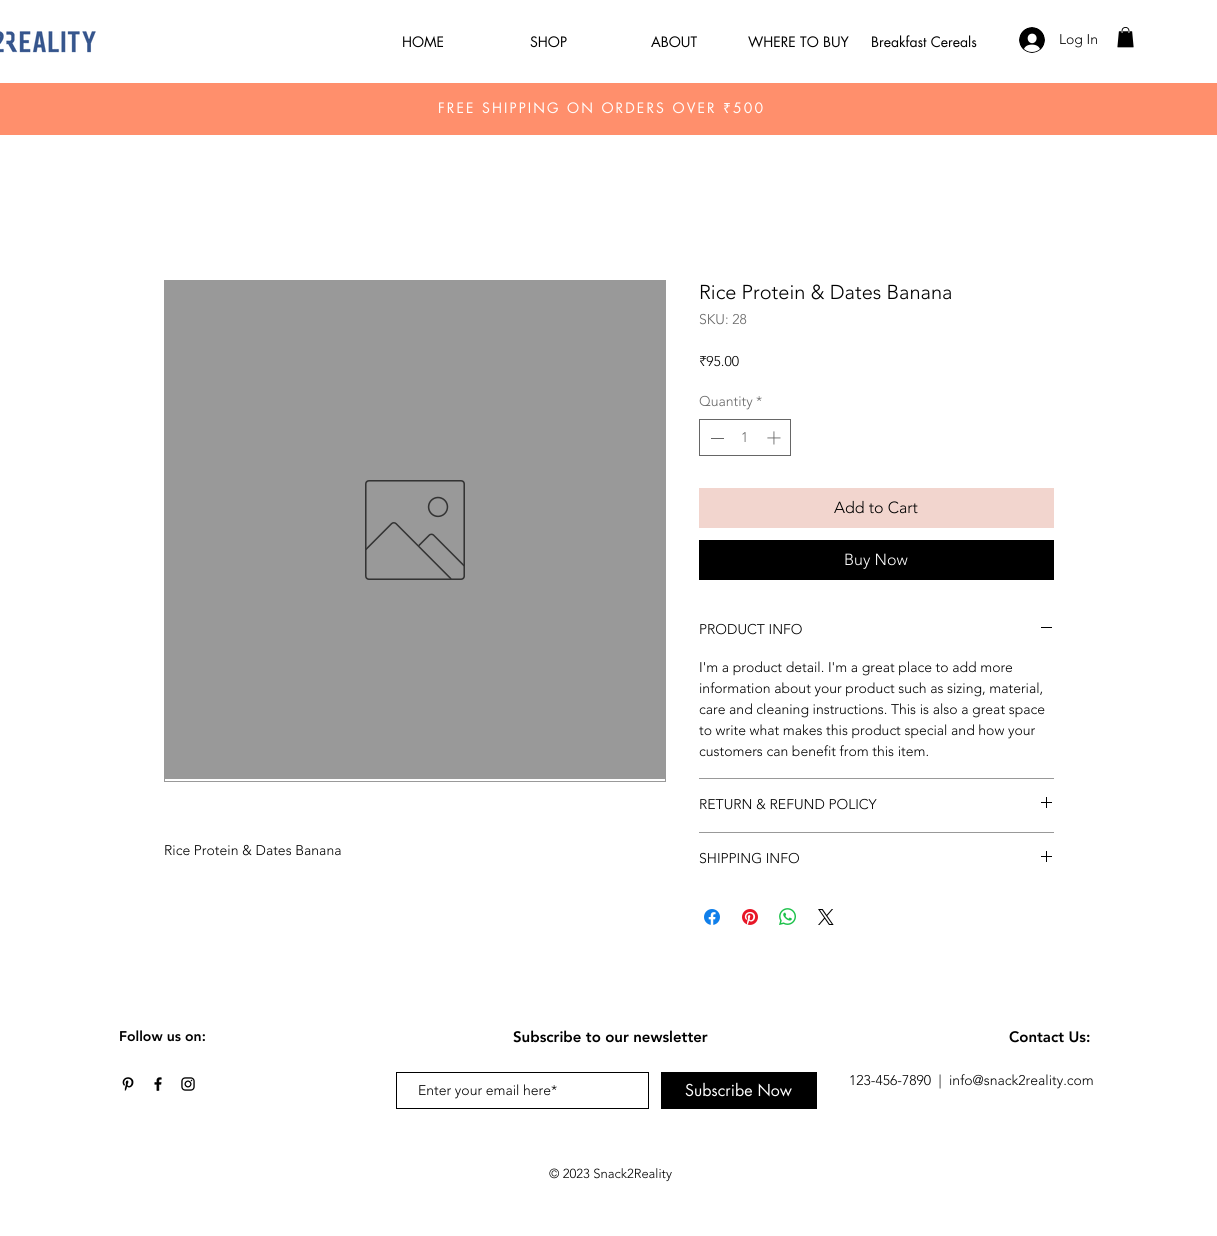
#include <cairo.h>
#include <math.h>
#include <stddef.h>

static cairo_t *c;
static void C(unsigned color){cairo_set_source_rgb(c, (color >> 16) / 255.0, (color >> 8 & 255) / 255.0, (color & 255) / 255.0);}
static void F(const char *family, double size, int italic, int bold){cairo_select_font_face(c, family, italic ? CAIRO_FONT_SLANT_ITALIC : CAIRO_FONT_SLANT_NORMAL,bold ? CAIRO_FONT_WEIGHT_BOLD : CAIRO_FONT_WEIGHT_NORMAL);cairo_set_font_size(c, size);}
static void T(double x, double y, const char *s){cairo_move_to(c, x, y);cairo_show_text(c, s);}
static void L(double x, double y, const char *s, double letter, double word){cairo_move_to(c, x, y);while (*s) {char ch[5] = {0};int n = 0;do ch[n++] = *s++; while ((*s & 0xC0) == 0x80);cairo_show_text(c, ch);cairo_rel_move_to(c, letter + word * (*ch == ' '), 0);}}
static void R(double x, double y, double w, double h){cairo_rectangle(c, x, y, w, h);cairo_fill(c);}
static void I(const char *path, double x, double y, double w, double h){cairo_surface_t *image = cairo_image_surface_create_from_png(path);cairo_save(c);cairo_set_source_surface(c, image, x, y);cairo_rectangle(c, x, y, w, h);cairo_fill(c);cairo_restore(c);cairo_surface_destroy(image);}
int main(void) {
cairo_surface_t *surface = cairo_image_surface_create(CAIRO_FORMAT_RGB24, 1217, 1236);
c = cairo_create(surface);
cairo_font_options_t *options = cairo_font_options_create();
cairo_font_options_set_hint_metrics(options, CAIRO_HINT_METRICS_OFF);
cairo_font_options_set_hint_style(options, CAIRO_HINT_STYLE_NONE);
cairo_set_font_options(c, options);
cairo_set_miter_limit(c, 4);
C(0xffffff);
cairo_paint(c);
F("futura",14,0,0);
C(0x000000);
T(402,47,"HOME");
T(530,47,"SHOP");
T(651,47,"ABOUT");
T(748,47,"WHERE TO BUY");
T(871,47,"Breakfast Cereals");
I("1.png",1019,27,26,26);
F("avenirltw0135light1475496 Light",14,0,0);
T(1059,44,"Log In");
I("2.png",1117,27,17,21);
I("3.png",0,31,96,22);
C(0xff8f6c);
R(0,83,1217,52);
F("futura",14,0,0);
C(0xffffff);
L(438,113,"FREE SHIPPING ON ORDERS OVER",2.1,0);
F("Noto Sans",14,0,0);
L(723,113,"₹",2.1,0);
F("futura",14,0,0);
L(733,113,"500",2.1,0);
cairo_rectangle(c,164.5,280.5,501,501);
C(0x999999);
cairo_set_line_width(c,1);
cairo_stroke(c);
R(165,281,500,498);
I("4.png",365,480,100,100);
F("avenirltw0135light1475496 Light",14,0,0);
C(0x000000);
T(164,855,"Rice Protein & Dates Banana");
F("avenirltw0135light1475496 Light",20,0,0);
T(699,299,"Rice Protein & Dates Banana");
F("avenirltw0135light1475496 Light",14,0,0);
C(0x666666);
T(699,324,"SKU: 28");
C(0x000000);
T(699,366,"₹95.00");
C(0x666666);
T(699,406,"Quantity");
T(756,406,"*");
cairo_rectangle(c,699.5,419.5,91,36);
cairo_stroke(c);
R(711,438,13,1);
T(741,442,"1");
I("5.png",767,431,14,14);
C(0xf2d5ce);
R(699,488,355,40);
F("avenirltw0135light1475496 Light",16,0,0);
C(0x000000);
T(834,513,"Add to Cart");
R(699,540,355,40);
C(0xffffff);
T(844,565,"Buy Now");
C(0x999999);
R(699,778,355,1);
F("avenirltw0135light1475496 Light",14,0,0);
C(0x000000);
T(699,634,"PRODUCT INFO");
R(1041,627,11,1);
T(699,672,"I'm a product detail. I'm a great place to add more");
T(699,693,"information about your product such as sizing, material,");
T(699,714,"care and cleaning instructions. This is also a great space");
T(699,735,"to write what makes this product special and how your");
T(699,756,"customers can benefit from this item.");
C(0x999999);
R(699,832,355,1);
C(0x000000);
T(699,809,"RETURN & REFUND POLICY");
I("6.png",1041,797,11,11);
T(699,863,"SHIPPING INFO");
I("6.png",1041,851,11,11);
I("7.png",704,909,16,16);
I("8.png",742,909,16,16);
I("9.png",779,908,17,17);
I("10.png",818,909,16,16);
F("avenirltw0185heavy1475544 Black",14,0,0);
T(119,1041,"Follow us on:");
F("avenirltw0185heavy1475544 Black",15,0,0);
T(513,1042,"Subscribe to our newsletter");
cairo_rectangle(c,396.5,1072.5,252,36);
cairo_stroke(c);
F("avenirltw0135light1475496 Light",14,0,0);
T(418,1095,"Enter your email here*");
R(661,1072,156,37);
F("futura",16,0,0);
C(0xffffff);
T(685,1096,"Subscribe Now");
F("avenirltw0185heavy1475544 Black",15,0,0);
C(0x000000);
T(1009,1042,"Contact Us:");
I("11.png",122,1077,12,14);
I("12.png",154,1077,8,14);
I("13.png",181,1077,14,14);
F("avenirltw0135light1475496 Light",14,0,0);
T(849,1085,"123-456-7890  |");
T(949,1085,"info@snack2reality.com");
F("avenirltw0135light1475496 Light",13,0,0);
T(549,1178,"© 2023 Snack2Reality");
cairo_surface_write_to_png(surface, "o.png");
cairo_font_options_destroy(options);
cairo_destroy(c);
cairo_surface_destroy(surface);
return 0;
}
